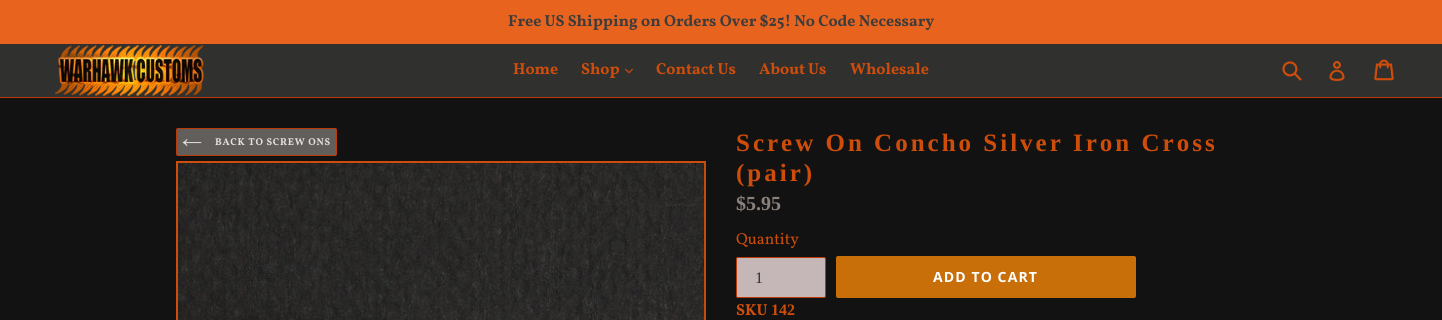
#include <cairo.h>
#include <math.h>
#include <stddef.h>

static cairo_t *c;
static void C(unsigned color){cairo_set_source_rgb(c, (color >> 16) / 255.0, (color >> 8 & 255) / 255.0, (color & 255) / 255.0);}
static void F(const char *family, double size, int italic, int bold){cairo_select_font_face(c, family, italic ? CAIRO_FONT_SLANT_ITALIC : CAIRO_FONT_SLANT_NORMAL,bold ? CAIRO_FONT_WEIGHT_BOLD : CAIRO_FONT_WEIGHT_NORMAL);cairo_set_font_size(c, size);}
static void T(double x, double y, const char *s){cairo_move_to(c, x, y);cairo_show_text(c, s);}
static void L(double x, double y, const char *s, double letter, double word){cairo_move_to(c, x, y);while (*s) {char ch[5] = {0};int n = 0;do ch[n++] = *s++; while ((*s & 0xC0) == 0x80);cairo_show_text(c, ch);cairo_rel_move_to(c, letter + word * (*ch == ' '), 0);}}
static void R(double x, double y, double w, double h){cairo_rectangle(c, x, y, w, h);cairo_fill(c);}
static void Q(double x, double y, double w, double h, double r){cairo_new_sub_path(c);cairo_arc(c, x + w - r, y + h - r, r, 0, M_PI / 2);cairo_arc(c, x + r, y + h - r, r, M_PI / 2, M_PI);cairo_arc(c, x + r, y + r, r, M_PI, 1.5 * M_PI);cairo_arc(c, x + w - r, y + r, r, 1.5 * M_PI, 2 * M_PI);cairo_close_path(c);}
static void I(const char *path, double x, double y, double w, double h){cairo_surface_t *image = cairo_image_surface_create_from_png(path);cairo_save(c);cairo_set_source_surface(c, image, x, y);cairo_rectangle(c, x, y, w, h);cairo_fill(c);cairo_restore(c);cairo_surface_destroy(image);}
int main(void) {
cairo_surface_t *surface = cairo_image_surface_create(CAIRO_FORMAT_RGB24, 1442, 320);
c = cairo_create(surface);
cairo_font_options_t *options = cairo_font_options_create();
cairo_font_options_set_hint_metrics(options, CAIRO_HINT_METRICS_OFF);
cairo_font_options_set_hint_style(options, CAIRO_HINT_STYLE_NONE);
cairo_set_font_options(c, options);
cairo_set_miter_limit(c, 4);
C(0x121212);
cairo_paint(c);
C(0xe8641e);
R(0,0,1442,44);
F("Vollkorn",16,0,1);
C(0x3e3c3b);
T(508,26,"Free US Shipping on Orders Over $25! No Code Necessary");
C(0x30302f);
R(0,44,1442,53);
C(0xbb3a06);
R(0,97,1442,1);
I("1.png",55,44,149,53);
C(0xce4d0a);
T(513,74,"Home");
T(581,74,"Shop");
I("2.png",625,68,8,6);
T(656,74,"Contact Us");
T(759,74,"About Us");
T(850,74,"Wholesale");
I("3.png",1282,61,20,20);
I("4.png",1329,61,16,20);
I("5.png",1374,59,20,22);
C(0x615e5c);
Q(176.5,128.5,160,27,1.5);
cairo_fill_preserve(c);
C(0xbb3a06);
cairo_set_line_width(c,1);
cairo_stroke(c);
I("6.png",182,139,20,8);
F("Vollkorn",10,0,1);
C(0xe2e0de);
L(215,145,"BACK TO SCREW ONS",.75,0);
cairo_rectangle(c,177,162,528,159);
C(0xce4d0a);
cairo_set_line_width(c,2);
cairo_stroke(c);
I("7.png",178,163,527,157);
F("Liberation Serif",25,0,1);
L(736,151,"Screw On Concho Silver Iron Cross",3,0);
L(736,181,"(pair)",3,0);
F("Liberation Serif",20,0,1);
C(0x8b817c);
T(736,210,"$5.95");
F("Vollkorn",16,0,0);
C(0xce4d0a);
T(736,244,"Quantity");
C(0xc5b7b7);
Q(736.5,257.5,89,40,1.5);
cairo_fill_preserve(c);
C(0xbb3a06);
cairo_set_line_width(c,1);
cairo_stroke(c);
F("Liberation Serif",16,0,0);
C(0x2e2d2d);
T(755,283,"1");
C(0xc86f09);
Q(836,256,300,42,2);
cairo_fill(c);
F("Open Sans",14,0,1);
C(0xffffff);
L(933,282,"ADD TO CART",1.1,0);
F("Vollkorn",16,0,1);
C(0xce4d0a);
T(736,315,"SKU");
F("Liberation Serif",16,0,1);
T(771,315,"142");
cairo_surface_write_to_png(surface, "o.png");
cairo_font_options_destroy(options);
cairo_destroy(c);
cairo_surface_destroy(surface);
return 0;
}
